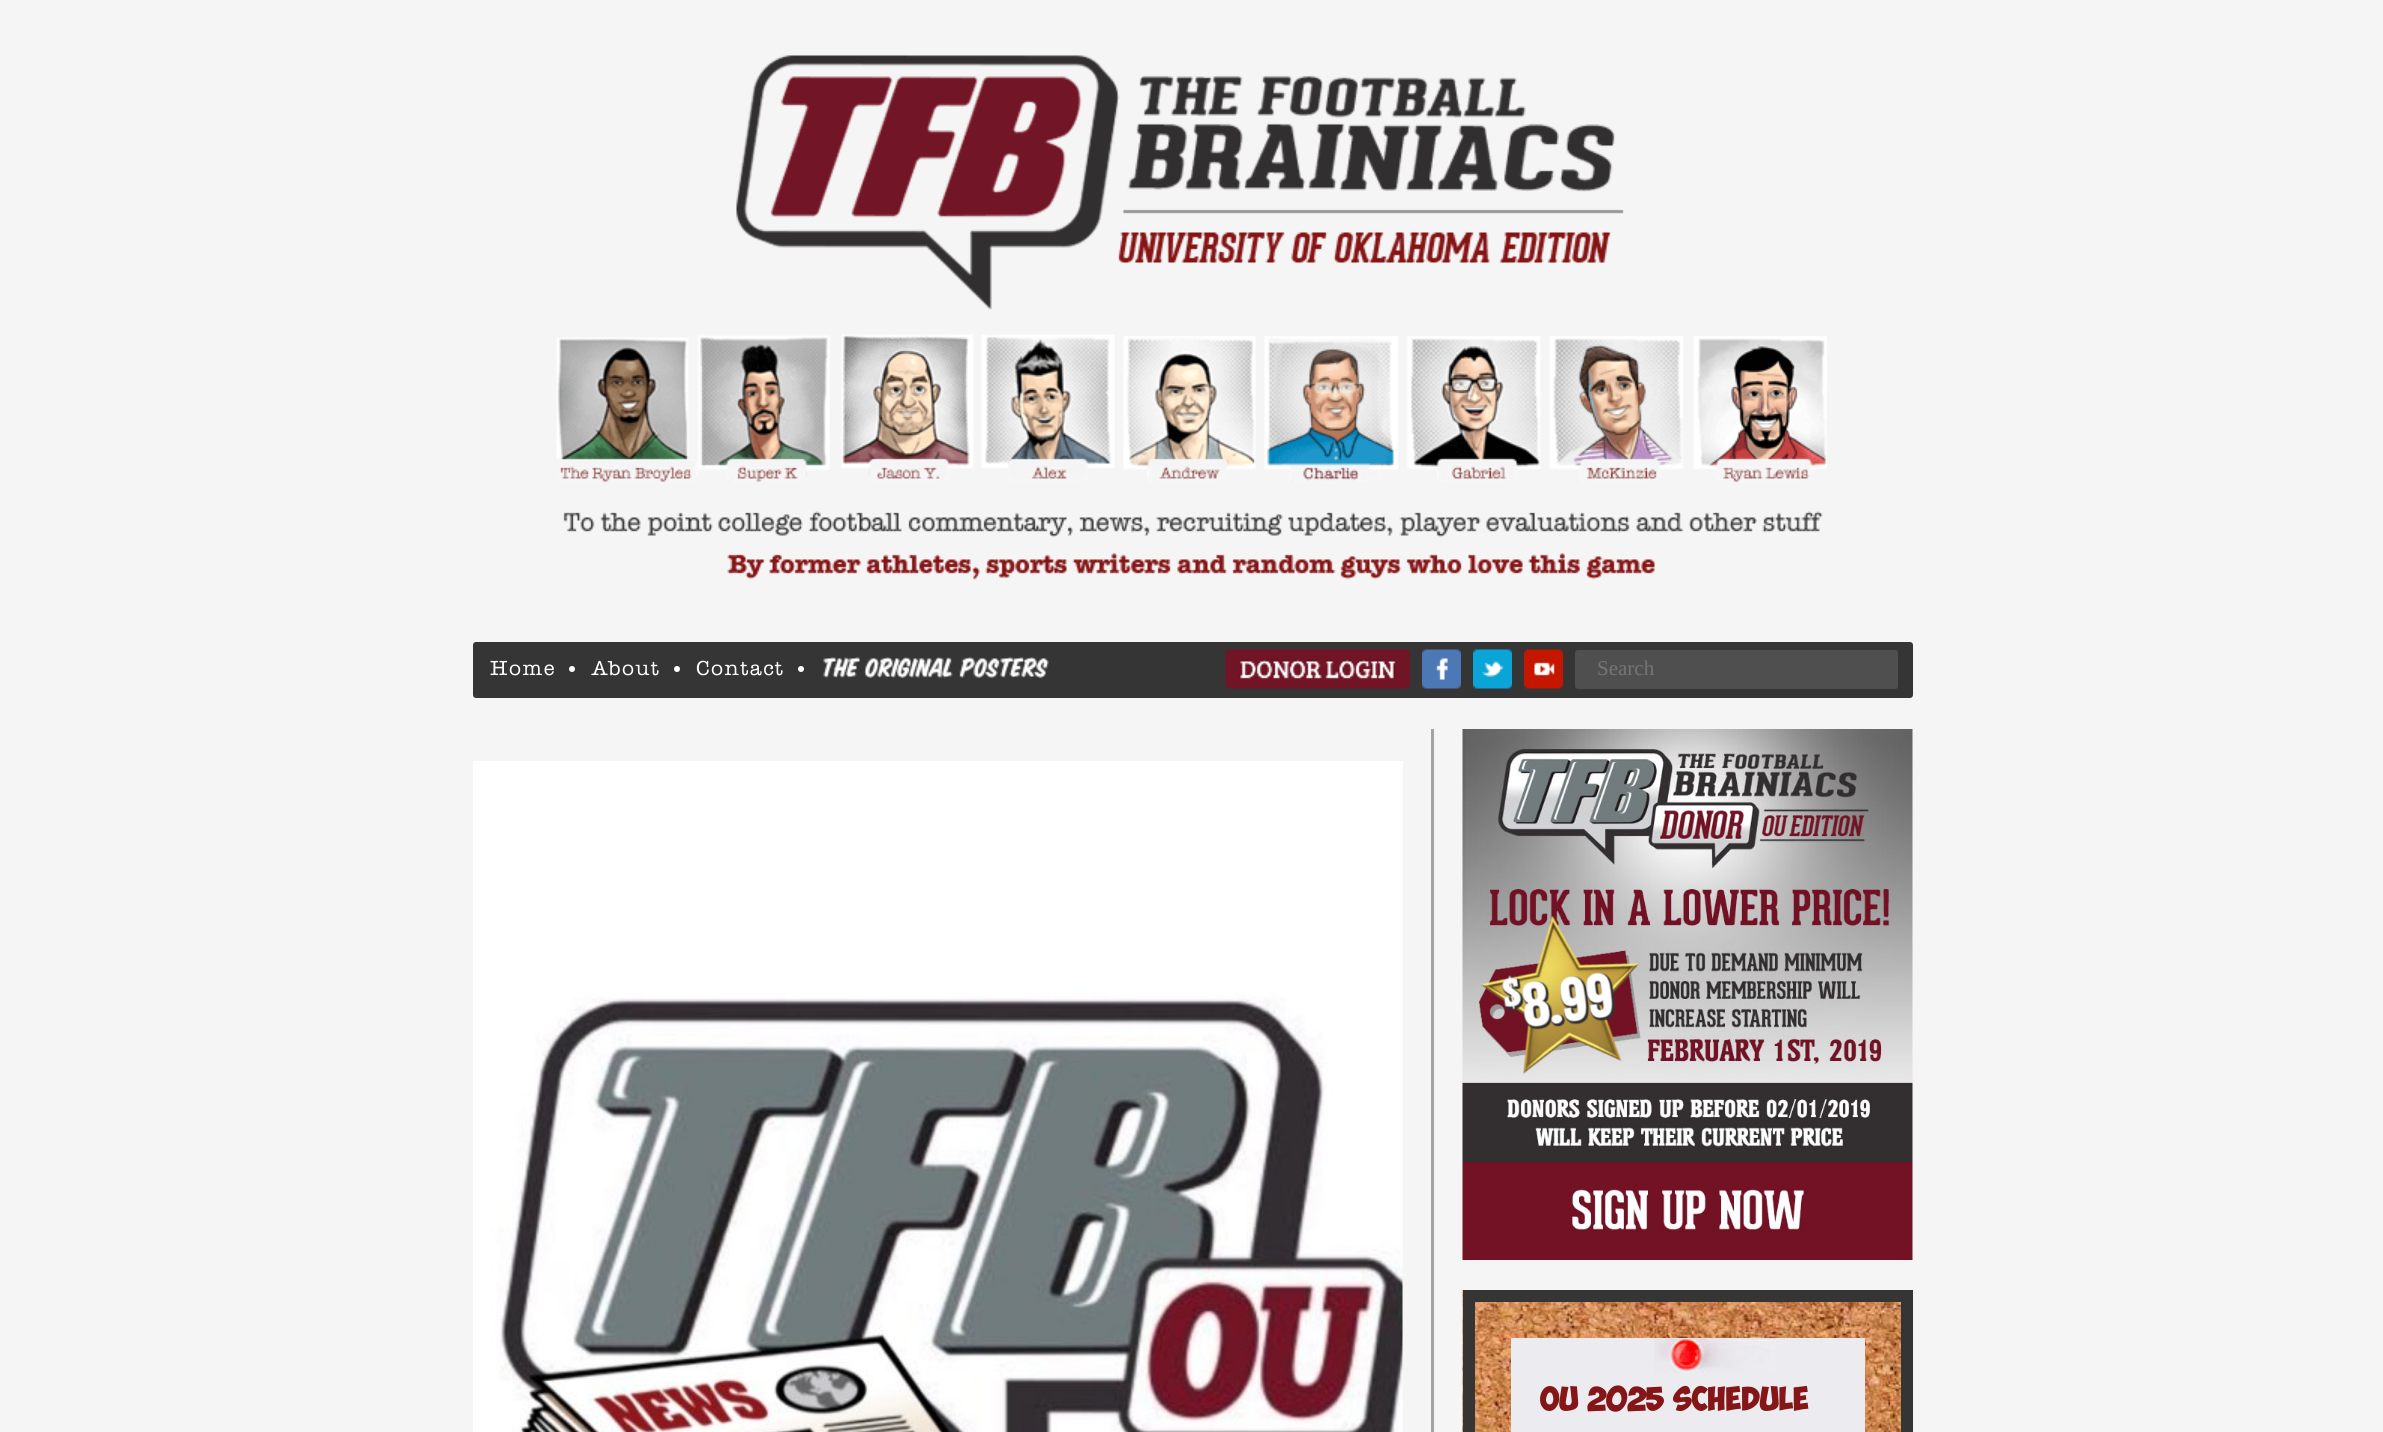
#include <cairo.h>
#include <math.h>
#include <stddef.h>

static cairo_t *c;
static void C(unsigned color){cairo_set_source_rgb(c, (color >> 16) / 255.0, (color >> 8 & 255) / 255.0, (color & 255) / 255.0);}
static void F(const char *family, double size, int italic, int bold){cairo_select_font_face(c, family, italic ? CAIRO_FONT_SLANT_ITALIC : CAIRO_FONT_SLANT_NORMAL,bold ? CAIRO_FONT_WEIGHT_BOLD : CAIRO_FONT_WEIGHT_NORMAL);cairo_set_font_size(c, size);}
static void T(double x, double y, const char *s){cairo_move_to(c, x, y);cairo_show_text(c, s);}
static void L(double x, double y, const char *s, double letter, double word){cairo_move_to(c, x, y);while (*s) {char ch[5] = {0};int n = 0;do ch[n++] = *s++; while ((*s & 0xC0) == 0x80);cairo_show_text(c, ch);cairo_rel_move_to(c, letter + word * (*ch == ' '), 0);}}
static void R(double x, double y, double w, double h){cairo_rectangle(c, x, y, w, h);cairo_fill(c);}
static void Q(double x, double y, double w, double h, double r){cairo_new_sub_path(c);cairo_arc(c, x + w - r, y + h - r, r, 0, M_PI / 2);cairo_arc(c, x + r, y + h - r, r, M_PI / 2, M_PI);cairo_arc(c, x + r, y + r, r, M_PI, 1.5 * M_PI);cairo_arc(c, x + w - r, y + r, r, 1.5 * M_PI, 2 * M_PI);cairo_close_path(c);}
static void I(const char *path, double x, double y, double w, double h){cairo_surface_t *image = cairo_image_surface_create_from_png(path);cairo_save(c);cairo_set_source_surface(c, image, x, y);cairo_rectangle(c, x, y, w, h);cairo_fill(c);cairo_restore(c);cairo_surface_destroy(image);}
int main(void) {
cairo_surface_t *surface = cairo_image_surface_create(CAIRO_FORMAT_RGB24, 2383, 1432);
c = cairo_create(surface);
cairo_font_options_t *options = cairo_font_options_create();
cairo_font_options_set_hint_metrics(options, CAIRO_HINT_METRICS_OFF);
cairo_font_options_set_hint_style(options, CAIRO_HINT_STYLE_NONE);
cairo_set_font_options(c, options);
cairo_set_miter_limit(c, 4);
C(0xf5f5f5);
cairo_paint(c);
I("1.png",556,55,1271,525);
C(0x353535);
Q(473,642,1440,56,3);
cairo_fill(c);
F("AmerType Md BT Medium",21,0,0);
C(0xffffff);
L(490,675,"Home",1.5,0);
cairo_new_path(c);
cairo_arc(c,572,669,3,0,2 * M_PI);
cairo_fill(c);
L(592,675,"About",1.5,0);
cairo_new_path(c);
cairo_arc(c,677,669,3,0,2 * M_PI);
cairo_fill(c);
L(696,675,"Contact",1.5,0);
cairo_new_path(c);
cairo_arc(c,801,669,3,0,2 * M_PI);
cairo_fill(c);
I("2.png",823,657,226,21);
I("3.png",1225,649,185,40);
I("4.png",1422,649,39,40);
I("5.png",1473,649,39,40);
I("6.png",1524,649,39,40);
C(0x4f4f4f);
Q(1575,650,323,39,3);
cairo_fill(c);
F("Liberation Serif",21,0,0);
C(0x757575);
T(1597,675,"Search");
C(0xa3a3a3);
R(1431,729,3,703);
cairo_save(c);
cairo_rectangle(c,473,761,930,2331);
cairo_clip(c);
cairo_rectangle(c,476,764,966,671);
C(0xffffff);
cairo_set_line_width(c,6);
cairo_stroke(c);
cairo_restore(c);
I("7.png",479,767,924,665);
I("8.png",1462,729,451,531);
I("9.png",1462,1290,439,142);
cairo_rectangle(c,1469,1296,438,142);
C(0x353535);
cairo_set_line_width(c,12);
cairo_stroke(c);
C(0xecebf0);
R(1511,1338,354,94);
I("10.png",1654,1338,122,35);
F("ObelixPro",24,0,0);
C(0x841617);
T(1540,1411,"OU 2025 Schedule");
cairo_surface_write_to_png(surface, "o.png");
cairo_font_options_destroy(options);
cairo_destroy(c);
cairo_surface_destroy(surface);
return 0;
}
